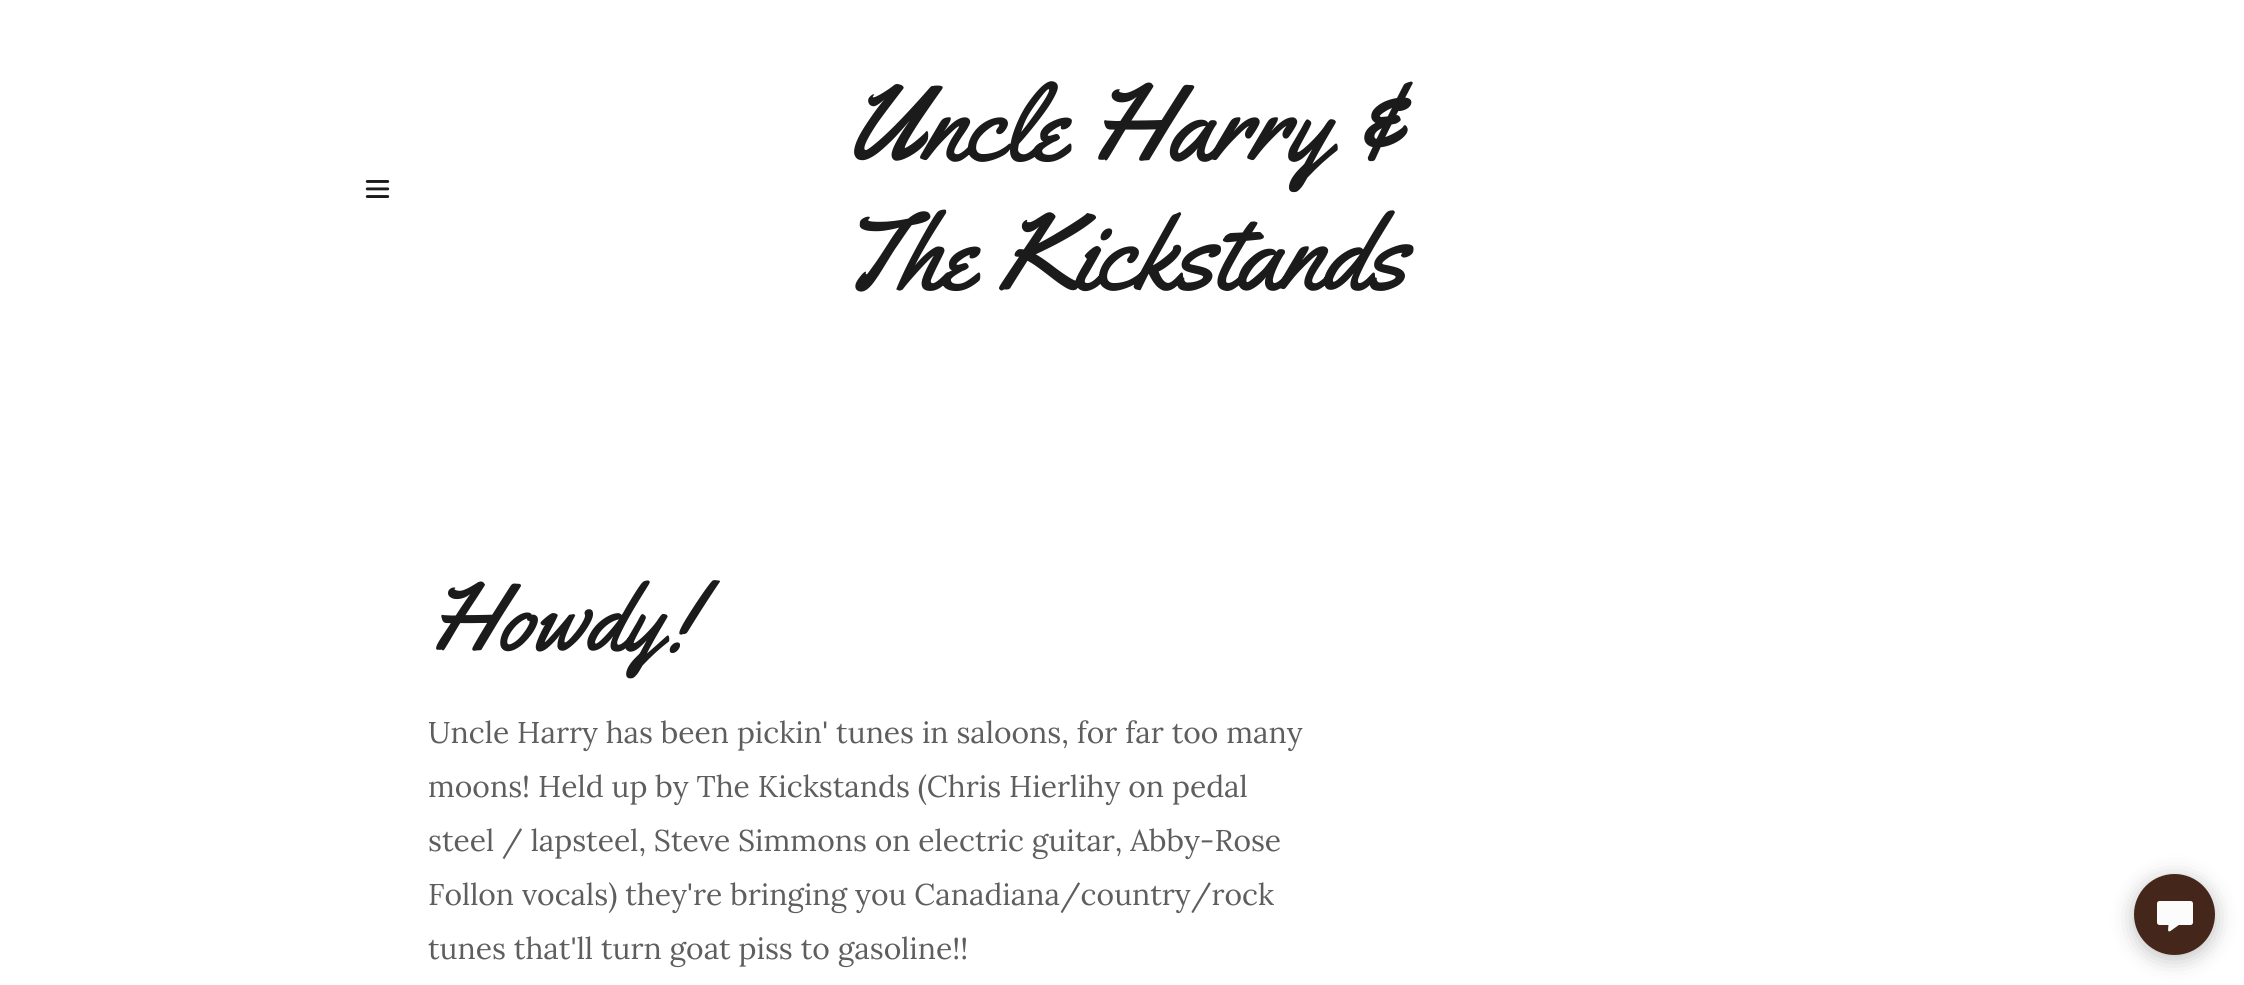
#include <cairo.h>
#include <math.h>
#include <stddef.h>

static cairo_t *c;
static void C(unsigned color){cairo_set_source_rgb(c, (color >> 16) / 255.0, (color >> 8 & 255) / 255.0, (color & 255) / 255.0);}
static void F(const char *family, double size, int italic, int bold){cairo_select_font_face(c, family, italic ? CAIRO_FONT_SLANT_ITALIC : CAIRO_FONT_SLANT_NORMAL,bold ? CAIRO_FONT_WEIGHT_BOLD : CAIRO_FONT_WEIGHT_NORMAL);cairo_set_font_size(c, size);}
static void T(double x, double y, const char *s){cairo_move_to(c, x, y);cairo_show_text(c, s);}
static void Q(double x, double y, double w, double h, double r){cairo_new_sub_path(c);cairo_arc(c, x + w - r, y + h - r, r, 0, M_PI / 2);cairo_arc(c, x + r, y + h - r, r, M_PI / 2, M_PI);cairo_arc(c, x + r, y + r, r, M_PI, 1.5 * M_PI);cairo_arc(c, x + w - r, y + r, r, 1.5 * M_PI, 2 * M_PI);cairo_close_path(c);}
static void S(double x, double y, double w, double h, double r, double blur, double alpha){cairo_push_group_with_content(c, CAIRO_CONTENT_ALPHA);cairo_set_operator(c, CAIRO_OPERATOR_SOURCE);for (int i = 15; i >= -15 && fmin(w, h) + blur * i / 3 > 0; i -= 2) {double e = blur * i / 6;cairo_set_source_rgba(c, 0, 0, 0, alpha * erfc((i - 1) / 8.5) / 2);Q(x - e, y - e, w + 2 * e, h + 2 * e, fmax(0, fmin(r + e + blur * .6, fmin(w, h) / 2 + e)));cairo_fill(c);}cairo_pattern_t *soft = cairo_pop_group(c);cairo_mask(c, soft);cairo_pattern_destroy(soft);}
static void I(const char *path, double x, double y, double w, double h){cairo_surface_t *image = cairo_image_surface_create_from_png(path);cairo_save(c);cairo_set_source_surface(c, image, x, y);cairo_rectangle(c, x, y, w, h);cairo_fill(c);cairo_restore(c);cairo_surface_destroy(image);}
int main(void) {
cairo_surface_t *surface = cairo_image_surface_create(CAIRO_FORMAT_RGB24, 2244, 985);
c = cairo_create(surface);
cairo_font_options_t *options = cairo_font_options_create();
cairo_font_options_set_hint_metrics(options, CAIRO_HINT_METRICS_OFF);
cairo_font_options_set_hint_style(options, CAIRO_HINT_STYLE_NONE);
cairo_set_font_options(c, options);
cairo_set_miter_limit(c, 4);
C(0xffffff);
cairo_paint(c);
I("1.png",365,180,25,18);
F("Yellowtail",107.5,0,0);
C(0x1b1b1b);
T(844,160,"Uncle Harry &");
T(838,289,"The Kickstands");
F("Yellowtail",95,0,0);
T(428,650,"Howdy!");
F("Lora",30,0,0);
C(0x5e5e5e);
T(428,743,"Uncle Harry has been pickin' tunes in saloons, for far too many");
T(428,797,"moons! Held up by The Kickstands (Chris Hierlihy on pedal");
T(428,851,"steel / lapsteel, Steve Simmons on electric guitar, Abby-Rose");
T(428,905,"Follon vocals) they're bringing you Canadiana/country/rock");
T(428,959,"tunes that'll turn goat piss to gasoline!!");
C(0x000000);
S(2134,878,81,81,40.5,11,.25);
C(0x45261a);
cairo_arc(c,2174.5,914.5,40.5,0,2 * M_PI);
cairo_fill(c);
I("2.png",2157,901,36,31);
cairo_surface_write_to_png(surface, "o.png");
cairo_font_options_destroy(options);
cairo_destroy(c);
cairo_surface_destroy(surface);
return 0;
}
